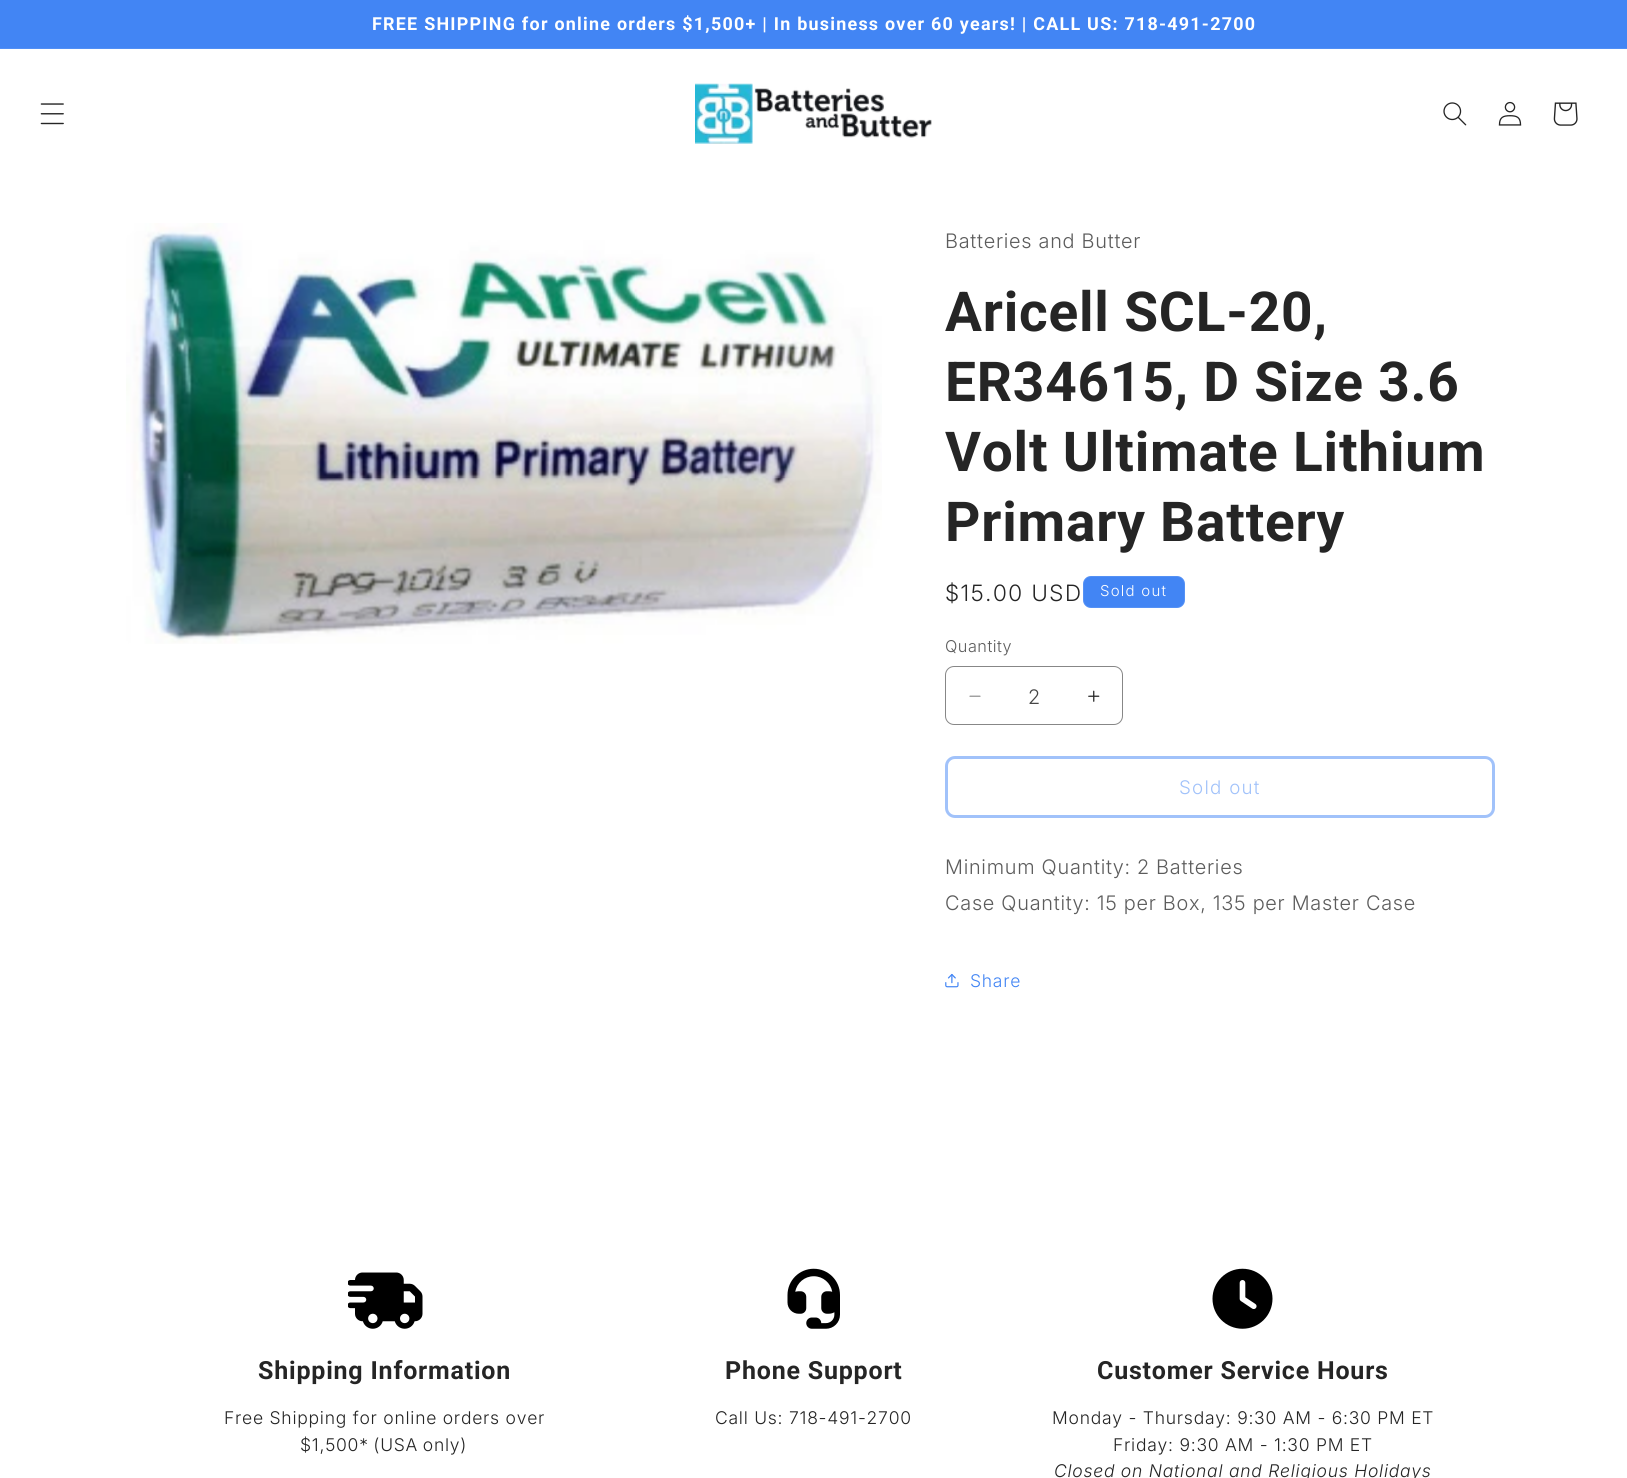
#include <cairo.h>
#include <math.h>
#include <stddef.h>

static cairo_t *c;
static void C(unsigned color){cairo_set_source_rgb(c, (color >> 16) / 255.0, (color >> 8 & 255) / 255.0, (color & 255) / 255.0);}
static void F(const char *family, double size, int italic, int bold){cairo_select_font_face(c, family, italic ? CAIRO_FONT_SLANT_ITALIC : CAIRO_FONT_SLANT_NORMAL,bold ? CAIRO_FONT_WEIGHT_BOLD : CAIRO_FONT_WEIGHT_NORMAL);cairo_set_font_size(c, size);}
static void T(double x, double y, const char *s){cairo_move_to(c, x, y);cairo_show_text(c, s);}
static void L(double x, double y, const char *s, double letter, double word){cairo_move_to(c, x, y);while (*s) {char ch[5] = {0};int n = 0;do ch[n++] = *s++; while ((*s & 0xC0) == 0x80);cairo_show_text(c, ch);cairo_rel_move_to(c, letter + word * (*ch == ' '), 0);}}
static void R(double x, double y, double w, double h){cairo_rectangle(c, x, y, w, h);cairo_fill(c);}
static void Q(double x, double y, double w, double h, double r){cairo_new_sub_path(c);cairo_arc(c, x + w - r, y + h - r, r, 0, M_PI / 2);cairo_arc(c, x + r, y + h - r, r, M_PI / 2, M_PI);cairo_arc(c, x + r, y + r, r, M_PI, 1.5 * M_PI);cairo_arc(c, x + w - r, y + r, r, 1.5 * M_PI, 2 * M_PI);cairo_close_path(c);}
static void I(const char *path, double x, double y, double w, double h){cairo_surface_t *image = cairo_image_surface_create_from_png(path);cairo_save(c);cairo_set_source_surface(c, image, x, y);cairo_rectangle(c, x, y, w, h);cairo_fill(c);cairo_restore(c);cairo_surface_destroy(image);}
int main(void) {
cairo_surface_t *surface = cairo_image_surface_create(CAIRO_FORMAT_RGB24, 1627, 1478);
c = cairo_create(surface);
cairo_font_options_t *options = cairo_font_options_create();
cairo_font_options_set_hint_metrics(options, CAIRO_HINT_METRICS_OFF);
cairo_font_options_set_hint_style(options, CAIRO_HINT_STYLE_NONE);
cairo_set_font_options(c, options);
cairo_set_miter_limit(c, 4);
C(0xffffff);
cairo_paint(c);
C(0x4285f4);
R(0,0,1627,48);
C(0x518ff5);
R(0,48,1627,1);
F("Roboto",17.9,0,1);
C(0xffffff);
L(372,30,"FREE SHIPPING for online orders $1,500+ | In business over 60 years! | CALL US: 718-491-2700",1.25,0);
I("1.png",40,103,24,22);
I("2.png",695,83,237,61);
I("3.png",1443,102,24,24);
I("4.png",1498,101,24,25);
I("5.png",1553,102,25,24);
I("6.png",126,223,756,421);
F("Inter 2 Light",20,0,0);
C(0x5c5c5c);
L(945,248,"Batteries and Butter",.75,0);
F("Roboto",55,0,1);
C(0x252525);
L(945,331,"Aricell SCL-20,",.8,0);
L(945,401,"ER34615, D Size 3.6",.8,0);
L(945,471,"Volt Ultimate Lithium",.8,0);
L(945,541,"Primary Battery",.8,0);
F("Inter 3 Light",22.5,0,0);
L(945,601,"$15.00 USD",1.6,0);
C(0x4285f4);
Q(1083,576,102,32,8);
cairo_fill(c);
Q(1083.5,576.5,101,31,7.5);
cairo_set_source_rgba(c,1,1,1,0.1);
cairo_set_line_width(c,1);
cairo_stroke(c);
F("Inter Light",15,0,0);
C(0xffffff);
L(1100,596,"Sold out",1.25,0);
F("Inter Light",16.25,0,0);
C(0x5c5c5c);
L(945,652,"Quantity",.5,0);
I("7.png",969,695,12,2);
I("8.png",1088,690,12,12);
Q(945.5,666.5,177,58,8.5);
C(0x878787);
cairo_stroke(c);
F("Inter 2 Light",20,0,0);
C(0x464646);
T(1028,704,"2");
Q(946.5,757.5,547,59,8.5);
C(0xa1c2fa);
cairo_set_line_width(c,3);
cairo_stroke(c);
F("Inter Light",18.75,0,0);
L(1179,794,"Sold out",1.25,0);
F("Inter 2 Light",20,0,0);
C(0x5c5c5c);
L(945,874,"Minimum Quantity: 2 Batteries",.75,0);
L(945,910,"Case Quantity: 15 per Box, 135 per Master Case",.75,0);
I("9.png",945,973,14,15);
F("Inter Light",17.5,0,0);
C(0x4285f4);
L(970,987,"Share",.75,0);
I("10.png",348,1272,75,57);
F("Roboto",25,0,1);
C(0x252525);
L(258,1379,"Shipping Information",.8,0);
F("Inter Light",17.5,0,0);
L(224,1424,"Free Shipping for online orders over",.75,0);
L(300,1451,"$1,500* (USA only)",.75,-1);
I("11.png",787,1268,53,61);
F("Roboto",25,0,1);
L(725,1379,"Phone Support",.8,0);
F("Inter Light",17.5,0,0);
L(715,1424,"Call Us: 718-491-2700",.75,0);
I("12.png",1212,1268,61,61);
F("Roboto",25,0,1);
L(1097,1379,"Customer Service Hours",.8,0);
F("Inter Light",17.5,0,0);
L(1052,1424,"Monday - Thursday: 9:30 AM - 6:30 PM ET",.75,0);
L(1113,1451,"Friday: 9:30 AM - 1:30 PM ET",.75,0);
F("Inter Light",17.5,1,0);
L(1054,1477,"Closed on National and Religious Holidays",.75,0);
cairo_surface_write_to_png(surface, "o.png");
cairo_font_options_destroy(options);
cairo_destroy(c);
cairo_surface_destroy(surface);
return 0;
}
